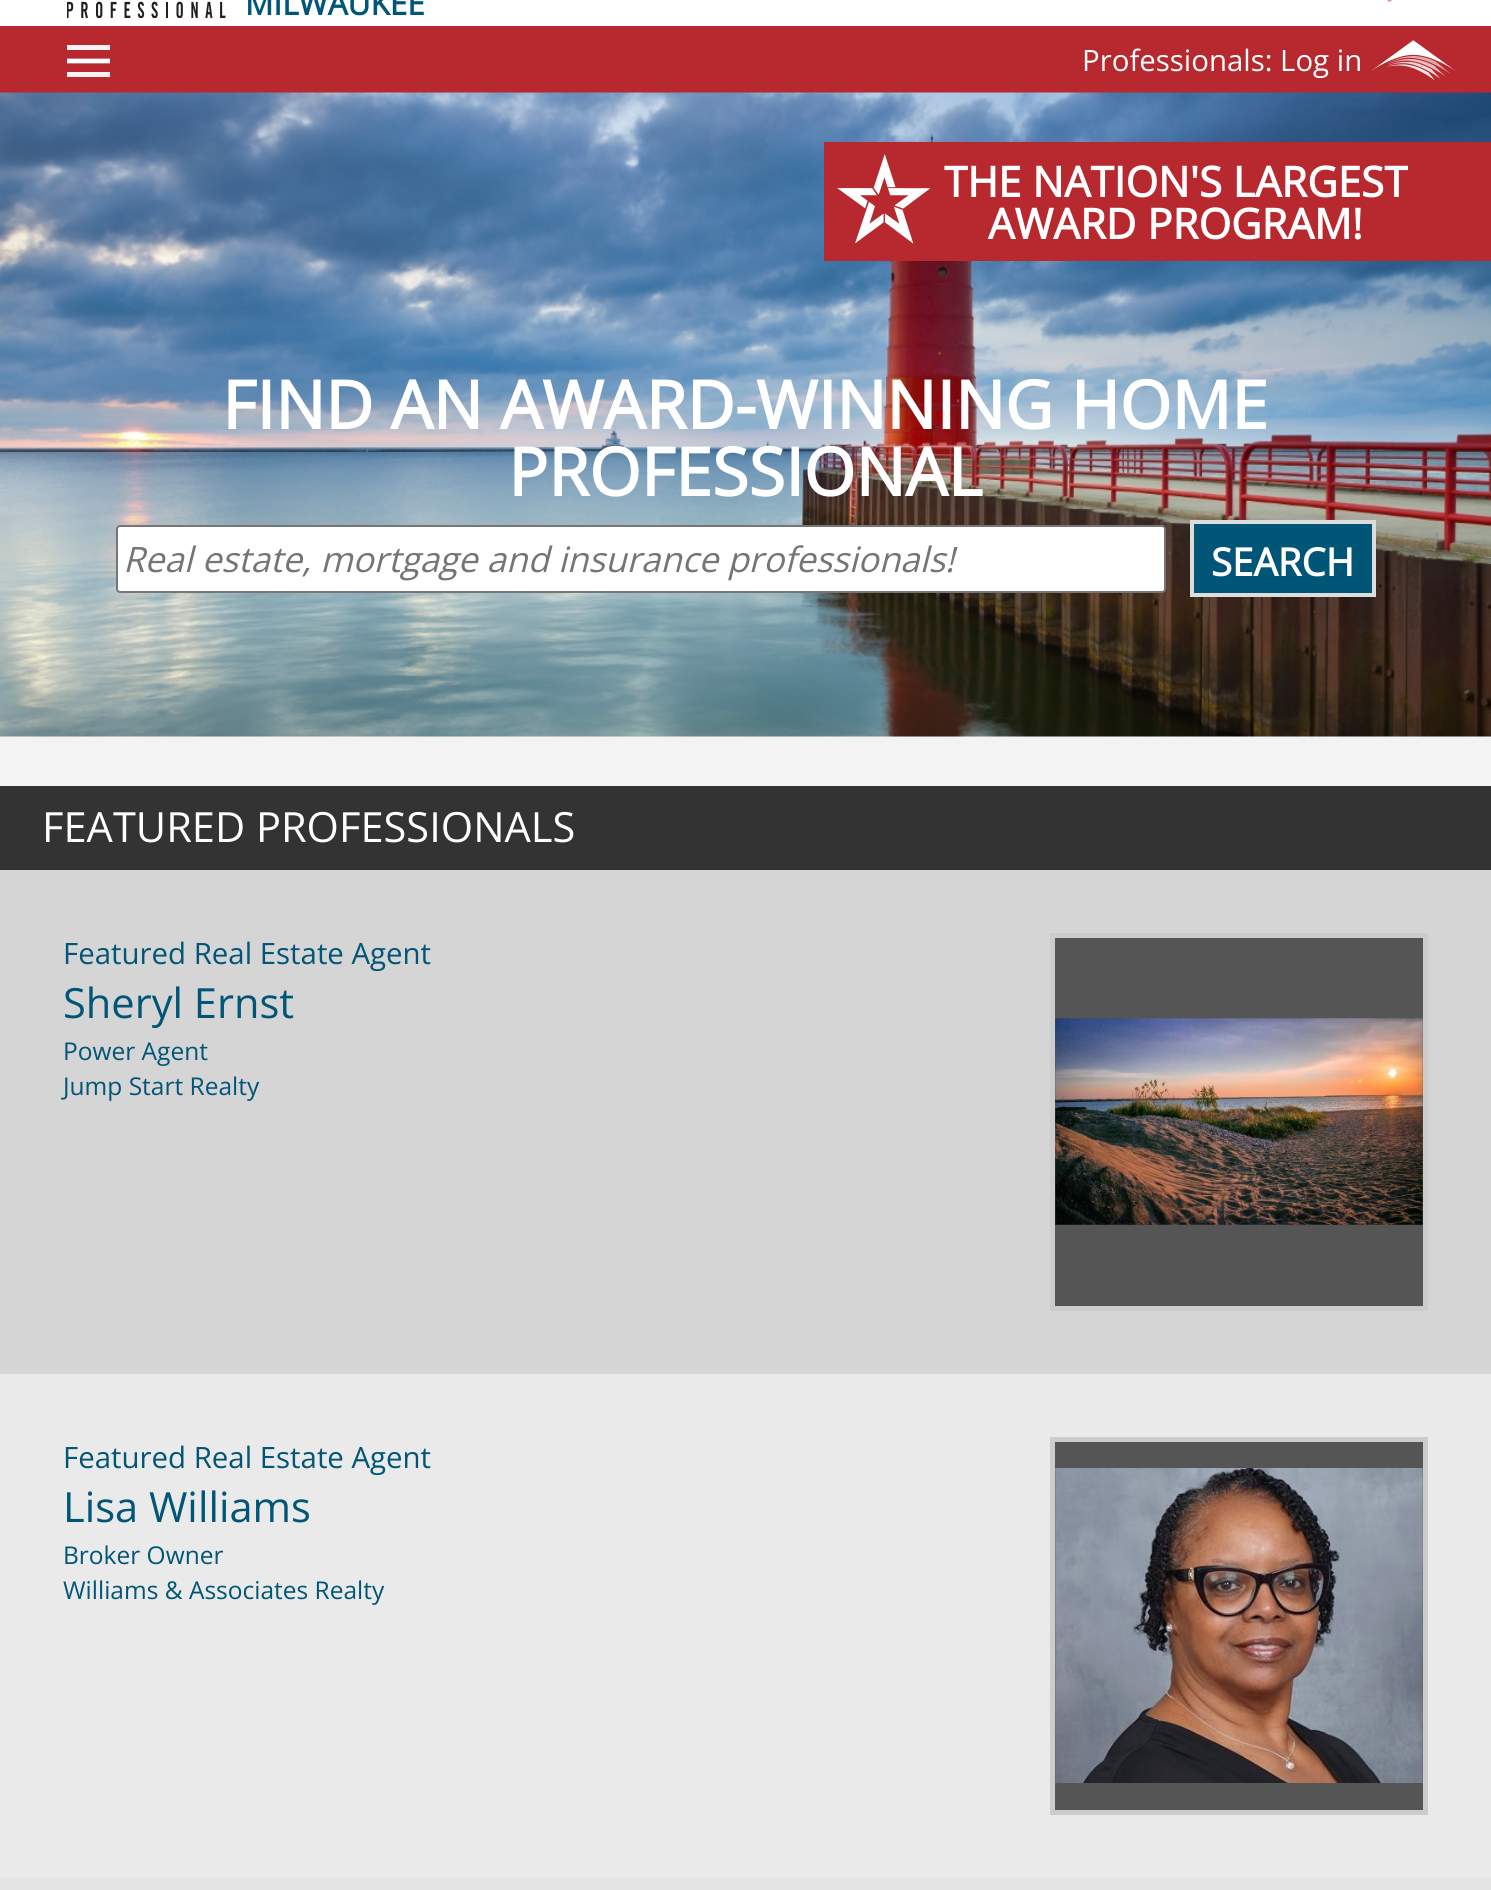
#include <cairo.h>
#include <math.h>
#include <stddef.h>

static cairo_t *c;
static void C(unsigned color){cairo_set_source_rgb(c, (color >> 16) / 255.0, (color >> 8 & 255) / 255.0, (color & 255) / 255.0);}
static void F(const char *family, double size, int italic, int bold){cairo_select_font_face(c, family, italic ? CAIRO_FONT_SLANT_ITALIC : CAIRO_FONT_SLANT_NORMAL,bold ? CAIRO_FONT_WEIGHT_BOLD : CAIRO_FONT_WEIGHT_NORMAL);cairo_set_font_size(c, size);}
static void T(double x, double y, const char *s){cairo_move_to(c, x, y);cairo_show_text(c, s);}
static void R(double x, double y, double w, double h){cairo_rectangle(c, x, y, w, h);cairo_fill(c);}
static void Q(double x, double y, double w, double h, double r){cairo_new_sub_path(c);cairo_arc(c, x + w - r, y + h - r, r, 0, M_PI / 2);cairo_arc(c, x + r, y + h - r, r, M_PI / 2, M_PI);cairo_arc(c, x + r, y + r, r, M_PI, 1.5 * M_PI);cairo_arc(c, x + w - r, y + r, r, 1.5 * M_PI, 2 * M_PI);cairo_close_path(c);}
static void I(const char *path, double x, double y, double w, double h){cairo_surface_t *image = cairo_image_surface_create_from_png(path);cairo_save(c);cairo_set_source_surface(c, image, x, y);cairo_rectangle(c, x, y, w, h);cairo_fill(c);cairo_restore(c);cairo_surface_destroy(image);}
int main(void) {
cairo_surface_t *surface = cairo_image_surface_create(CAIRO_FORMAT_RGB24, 1491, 1890);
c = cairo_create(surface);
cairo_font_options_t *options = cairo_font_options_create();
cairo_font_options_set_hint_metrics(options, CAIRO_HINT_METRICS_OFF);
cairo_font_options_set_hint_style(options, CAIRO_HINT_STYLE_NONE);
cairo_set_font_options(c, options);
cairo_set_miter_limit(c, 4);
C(0xf3f3f4);
cairo_paint(c);
C(0xffffff);
R(0,0,1491,26);
I("1.png",67,1,159,17);
F("Open Sans",31.5,0,1);
C(0x015577);
T(245,15,"MILWAUKEE");
I("2.png",1387,0,5,2);
C(0xb7292f);
R(0,26,1491,67);
cairo_save(c);
cairo_rectangle(c,67,39,43,43);
cairo_clip(c);
cairo_new_path(c);
cairo_move_to(c,66.5,61);
cairo_line_to(c,110,61);
C(0xffffff);
cairo_set_line_width(c,4.7);
cairo_stroke(c);
cairo_restore(c);
C(0xfbf2f3);
R(67,72,43,5);
R(67,45,43,5);
F("Open Sans",29.4,0,0);
C(0xffffff);
T(1082,71,"Professionals: Log in");
I("3.png",1371,40,85,41);
I("4.png",0,92,1491,645);
C(0xb7292f);
R(824,142,667,119);
I("5.png",837,154,94,90);
F("Open Sans",42,0,1);
C(0xffffff);
T(944,197,"THE NATION'S LARGEST");
T(988,239,"AWARD PROGRAM!");
F("Open Sans",66.5,0,1);
T(222,429,"FIND AN AWARD-WINNING HOME");
T(508,496,"PROFESSIONAL");
Q(117,526,1048,66,3);
cairo_fill_preserve(c);
C(0x767676);
cairo_stroke(c);
F("Open Sans",35,1,0);
C(0x757575);
T(123,572,"Real estate, mortgage and insurance professionals!");
C(0x015577);
cairo_rectangle(c,1192,522,182,73);
cairo_fill_preserve(c);
C(0xdddddd);
cairo_set_line_width(c,4);
cairo_stroke(c);
F("Open Sans",38.5,0,1);
C(0xffffff);
T(1211,576,"SEARCH");
C(0x333333);
R(0,786,1491,84);
F("Open Sans",41.6,0,0);
C(0xffffff);
T(42,842,"FEATURED PROFESSIONALS");
C(0xd5d5d5);
R(0,870,1491,504);
F("Open Sans",29.4,0,0);
C(0x015577);
T(63,964,"Featured Real Estate Agent");
F("Open Sans",41.6,0,0);
T(63,1018,"Sheryl Ernst");
F("Open Sans",24.5,0,0);
T(63,1060,"Power Agent");
T(63,1095,"Jump Start Realty");
C(0x555555);
R(1055,938,368,368);
I("6.png",1055,1018,368,207);
cairo_rectangle(c,1052.5,935.5,373,373);
C(0xcccccc);
cairo_set_line_width(c,5);
cairo_stroke(c);
C(0xeaeaea);
R(0,1374,1491,504);
F("Open Sans",29.4,0,0);
C(0x015577);
T(63,1468,"Featured Real Estate Agent");
F("Open Sans",41.6,0,0);
T(63,1522,"Lisa Williams");
F("Open Sans",24.5,0,0);
T(63,1564,"Broker Owner");
T(63,1599,"Williams & Associates Realty");
C(0x555555);
R(1055,1442,368,368);
I("7.png",1055,1468,368,315);
cairo_rectangle(c,1052.5,1439.5,373,373);
C(0xcccccc);
cairo_stroke(c);
C(0xe5e5e5);
R(0,1878,1491,12);
cairo_surface_write_to_png(surface, "o.png");
cairo_font_options_destroy(options);
cairo_destroy(c);
cairo_surface_destroy(surface);
return 0;
}
